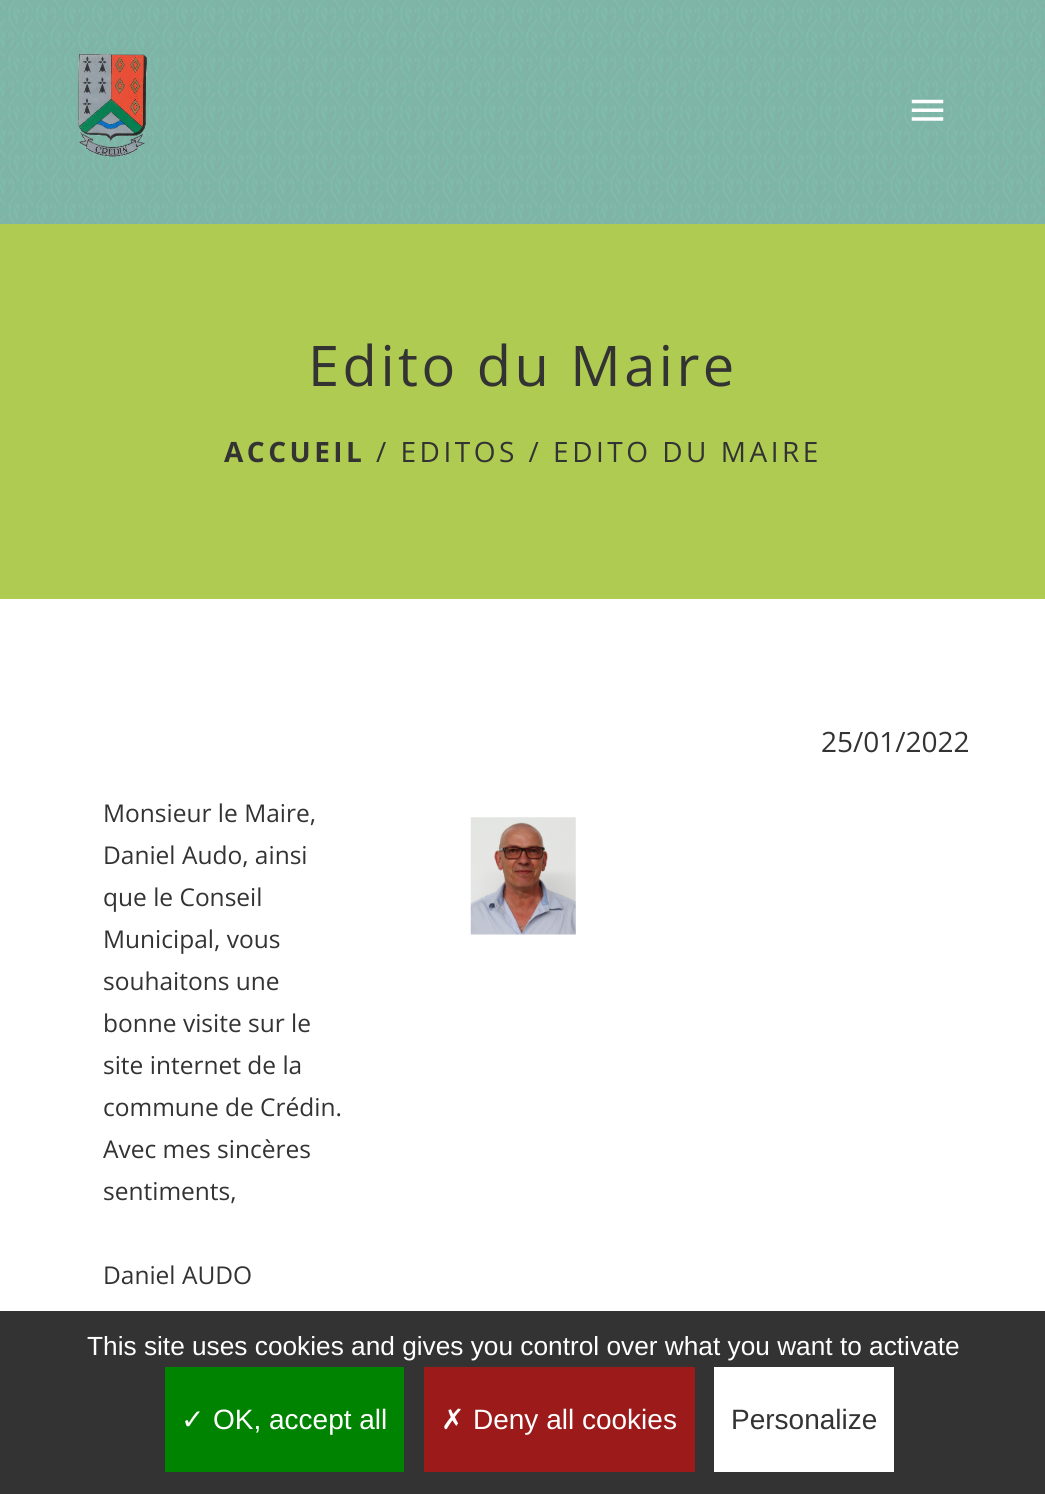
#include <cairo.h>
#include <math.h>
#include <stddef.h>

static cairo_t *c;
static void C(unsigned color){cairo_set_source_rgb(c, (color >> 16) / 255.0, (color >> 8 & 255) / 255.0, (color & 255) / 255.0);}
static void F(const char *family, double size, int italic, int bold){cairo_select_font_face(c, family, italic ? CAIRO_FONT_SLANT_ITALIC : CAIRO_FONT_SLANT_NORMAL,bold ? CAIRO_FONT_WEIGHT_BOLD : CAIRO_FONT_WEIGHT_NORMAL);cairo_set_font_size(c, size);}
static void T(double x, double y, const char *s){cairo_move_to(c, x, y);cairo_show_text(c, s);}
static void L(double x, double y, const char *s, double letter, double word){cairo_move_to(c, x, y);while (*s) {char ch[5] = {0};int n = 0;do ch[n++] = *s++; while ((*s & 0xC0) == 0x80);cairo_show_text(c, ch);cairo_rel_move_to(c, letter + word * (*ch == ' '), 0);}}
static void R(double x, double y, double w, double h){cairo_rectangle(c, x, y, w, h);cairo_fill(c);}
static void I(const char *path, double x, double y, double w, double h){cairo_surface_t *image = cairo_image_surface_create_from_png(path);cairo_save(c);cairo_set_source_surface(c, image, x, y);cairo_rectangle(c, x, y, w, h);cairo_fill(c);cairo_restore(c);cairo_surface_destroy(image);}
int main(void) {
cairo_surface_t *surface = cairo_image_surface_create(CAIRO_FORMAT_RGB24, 1045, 1494);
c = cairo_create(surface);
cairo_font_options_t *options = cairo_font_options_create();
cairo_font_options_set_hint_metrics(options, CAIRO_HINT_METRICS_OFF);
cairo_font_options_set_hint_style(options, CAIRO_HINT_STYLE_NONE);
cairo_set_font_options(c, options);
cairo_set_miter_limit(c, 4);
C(0xffffff);
cairo_paint(c);
C(0x80bdad);
R(0,0,1045,224);
I("1.png",0,0,1045,224);
I("2.png",78,53,69,104);
I("3.png",911,99,33,22);
C(0xafcb52);
R(0,224,1045,375);
F("Open Sans",56,0,0);
C(0x333333);
L(308,386,"Edito du Maire",3.5,0);
F("Open Sans",28,0,1);
L(224,462,"ACCUEIL",3.5,0);
F("Open Sans",28,0,0);
L(376,462,"/ EDITOS / EDITO DU MAIRE",3.5,0);
T(821,752,"25/01/2022");
F("Open Sans",24.5,0,0);
T(103,822,"Monsieur le Maire,");
T(103,864,"Daniel Audo, ainsi");
T(103,906,"que le Conseil");
T(103,948,"Municipal, vous");
T(103,990,"souhaitons une");
T(103,1032,"bonne visite sur le");
T(103,1074,"site internet de la");
T(103,1116,"commune de Crédin.");
T(103,1158,"Avec mes sincères");
T(103,1200,"sentiments,");
T(103,1284,"Daniel AUDO");
I("4.png",470,817,106,118);
R(0,1311,1045,183);
F("Liberation Sans",26.25,0,0);
C(0xffffff);
T(87,1355,"This site uses cookies and gives you control over what you want to activate");
C(0x008300);
R(165,1367,239,105);
F("DejaVu Sans",28,0,0);
C(0xffffff);
T(181,1429,"✓");
F("Liberation Sans",28,0,0);
T(213,1429,"OK, accept all");
C(0x9c1a1a);
R(424,1367,271,105);
F("DejaVu Sans",28,0,0);
C(0xffffff);
T(441,1429,"✗");
F("Liberation Sans",28,0,0);
T(473,1429,"Deny all cookies");
R(714,1367,180,105);
C(0x333333);
T(731,1429,"Personalize");
cairo_surface_write_to_png(surface, "o.png");
cairo_font_options_destroy(options);
cairo_destroy(c);
cairo_surface_destroy(surface);
return 0;
}
